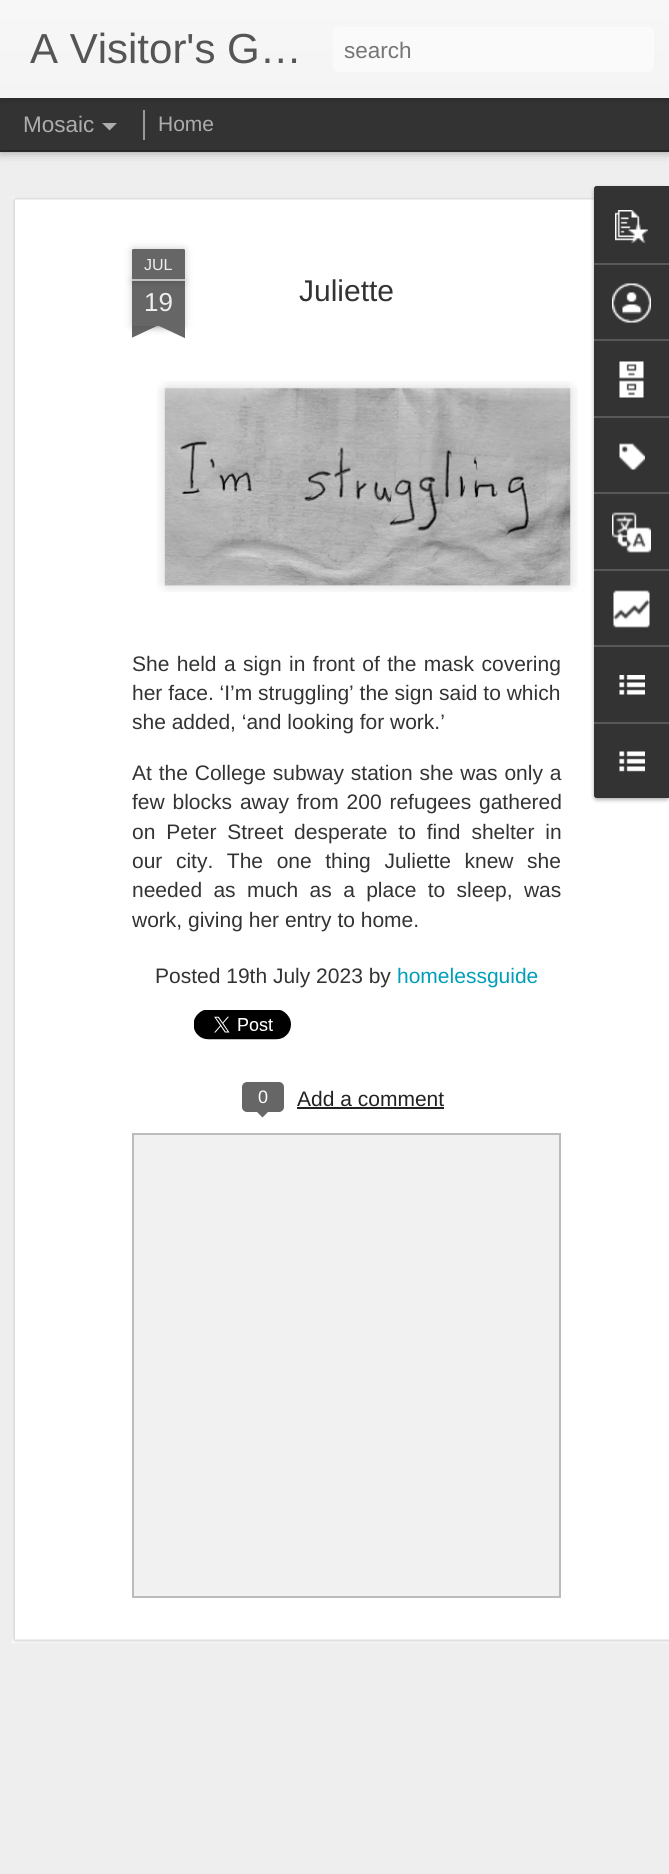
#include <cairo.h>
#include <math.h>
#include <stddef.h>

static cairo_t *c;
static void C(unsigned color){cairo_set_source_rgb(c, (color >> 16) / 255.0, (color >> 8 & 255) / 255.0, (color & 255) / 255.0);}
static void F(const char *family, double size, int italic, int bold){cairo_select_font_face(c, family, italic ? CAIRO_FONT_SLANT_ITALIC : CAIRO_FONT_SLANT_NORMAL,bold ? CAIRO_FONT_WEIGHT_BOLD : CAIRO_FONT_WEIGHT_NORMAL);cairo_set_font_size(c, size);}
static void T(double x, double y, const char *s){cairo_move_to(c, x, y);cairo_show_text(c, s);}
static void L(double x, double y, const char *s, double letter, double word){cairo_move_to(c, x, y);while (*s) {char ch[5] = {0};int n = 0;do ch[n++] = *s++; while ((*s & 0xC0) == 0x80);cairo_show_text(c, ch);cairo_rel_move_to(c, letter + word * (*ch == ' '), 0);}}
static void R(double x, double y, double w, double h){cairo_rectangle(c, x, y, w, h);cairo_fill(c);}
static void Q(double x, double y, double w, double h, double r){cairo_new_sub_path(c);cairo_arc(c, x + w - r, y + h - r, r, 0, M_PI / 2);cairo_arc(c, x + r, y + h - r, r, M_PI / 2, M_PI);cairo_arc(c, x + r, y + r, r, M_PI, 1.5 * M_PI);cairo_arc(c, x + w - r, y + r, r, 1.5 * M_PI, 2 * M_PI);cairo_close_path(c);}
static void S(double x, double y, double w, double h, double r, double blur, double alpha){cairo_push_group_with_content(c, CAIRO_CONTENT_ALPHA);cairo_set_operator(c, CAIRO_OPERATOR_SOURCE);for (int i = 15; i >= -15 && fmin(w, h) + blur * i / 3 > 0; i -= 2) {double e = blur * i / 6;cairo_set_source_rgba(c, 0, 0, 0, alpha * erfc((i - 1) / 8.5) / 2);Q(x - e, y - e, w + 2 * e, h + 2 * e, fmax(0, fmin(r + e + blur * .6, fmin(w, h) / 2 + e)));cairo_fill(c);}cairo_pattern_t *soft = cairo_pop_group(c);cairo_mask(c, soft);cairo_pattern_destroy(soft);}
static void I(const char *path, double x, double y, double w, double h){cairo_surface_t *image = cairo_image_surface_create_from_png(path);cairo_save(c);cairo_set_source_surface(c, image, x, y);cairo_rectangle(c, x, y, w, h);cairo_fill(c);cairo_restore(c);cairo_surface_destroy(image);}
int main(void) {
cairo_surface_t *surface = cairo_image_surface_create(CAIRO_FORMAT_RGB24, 669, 1874);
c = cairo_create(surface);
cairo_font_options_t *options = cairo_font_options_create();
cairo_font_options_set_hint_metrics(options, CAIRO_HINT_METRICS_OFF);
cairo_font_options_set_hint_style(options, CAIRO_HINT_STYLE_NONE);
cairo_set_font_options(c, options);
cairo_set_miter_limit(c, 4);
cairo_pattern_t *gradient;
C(0x333333);
cairo_paint(c);
C(0xeeeeee);
R(0,152,669,1722);
C(0x000000);
S(0,98,669,52,0,6,.5);
C(0x333333);
R(0,98,669,52);
C(0x999999);
R(143,110,2,30);
C(0x000000);
S(0,0,669,98,0,4,.3);
gradient = cairo_pattern_create_linear(0,0,0,98);
cairo_pattern_add_color_stop_rgba(gradient,0,0.969,0.969,0.969,1);
cairo_pattern_add_color_stop_rgba(gradient,1,0.957,0.957,0.957,1);
cairo_set_source(c,gradient);
cairo_pattern_destroy(gradient);
R(0,0,669,98);
F("Liberation Sans",42,0,0);
C(0x555555);
T(30,63,"A Visitor's G…");
C(0xfafafa);
Q(333,27,321,45,5);
cairo_fill(c);
F("Liberation Sans",22.5,0,0);
C(0x757575);
T(344,58,"search");
C(0xadadad);
T(23,132,"Mosaic");
cairo_new_path(c);
cairo_move_to(c,102,123);
cairo_line_to(c,117,123);
cairo_line_to(c,109.5,130.5);
cairo_close_path(c);
cairo_fill(c);
F("Liberation Sans",21,0,0);
T(158,131,"Home");
C(0xffffff);
R(12,197,657,1446);
I("1.png",12,197,657,1446);
C(0x000000);
S(132,281,53,45,0,4,.2);
C(0x666666);
R(132,281,53,45);
C(0x000000);
S(132,249,53,32,1.5,4,.2);
C(0x666666);
cairo_new_path(c);
cairo_move_to(c,133.5,249);
cairo_line_to(c,183.5,249);
cairo_curve_to(c,184.5,249,185,249.5,185,250.5);
cairo_line_to(c,185,281);
cairo_line_to(c,132,281);
cairo_line_to(c,132,250.5);
cairo_curve_to(c,132,249.5,132.5,249,133.5,249);
cairo_close_path(c);
cairo_fill(c);
C(0xc2c2c2);
R(132,279,53,2);
F("Liberation Sans",16,0,0);
C(0xeeeeee);
T(144,270,"JUL");
F("Liberation Sans",26,0,0);
T(144,311,"19");
cairo_save(c);
cairo_rectangle(c,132,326,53,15);
cairo_clip(c);
C(0x000000);
S(119,311,75,15,0,4,.2);
cairo_restore(c);
cairo_save(c);
cairo_rectangle(c,132,326,53,15);
cairo_clip(c);
C(0x666666);
cairo_new_path(c);
cairo_move_to(c,119,327);
cairo_line_to(c,187,295);
cairo_line_to(c,193,309);
cairo_line_to(c,125,341);
cairo_close_path(c);
cairo_fill(c);
cairo_restore(c);
cairo_save(c);
cairo_rectangle(c,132,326,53,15);
cairo_clip(c);
C(0x000000);
S(123,311,75,15,0,4,.2);
cairo_restore(c);
cairo_save(c);
cairo_rectangle(c,132,326,53,15);
cairo_clip(c);
C(0x666666);
cairo_new_path(c);
cairo_move_to(c,130,295);
cairo_line_to(c,198,327);
cairo_line_to(c,191,341);
cairo_line_to(c,123,309);
cairo_close_path(c);
cairo_fill(c);
cairo_restore(c);
F("Liberation Sans",30,0,0);
C(0x333333);
T(299,301,"Juliette");
I("2.png",157,381,421,211);
I("3.png",164,387,407,199);
F("Liberation Sans",21,0,0);
L(132,671,"She held a sign in front of the mask covering",0,1.6);
T(132,700,"her face. ‘I’m struggling’ the sign said to which");
T(132,729,"she added, ‘and looking for work.’");
L(132,780,"At the College subway station she was only a",0,1);
L(132,809,"few blocks away from 200 refugees gathered",0,2);
L(132,839,"on Peter Street desperate to find shelter in",0,5);
L(132,868,"our city. The one thing Juliette knew she",0,7.75);
L(132,897,"needed as much as a place to sleep, was",0,5.5);
T(132,927,"work, giving her entry to home.");
T(155,983,"Posted 19th July 2023 by");
C(0x009eb8);
T(397,983,"homelessguide");
I("4.png",194,1010,97,30);
C(0x666666);
Q(243,1083,40,28,4);
cairo_fill_preserve(c);
cairo_stroke(c);
F("Liberation Sans",18,0,0);
C(0xffffff);
T(258,1103,"0");
C(0x666666);
cairo_new_path(c);
cairo_move_to(c,255,1110);
cairo_line_to(c,270,1110);
cairo_line_to(c,262.5,1117.5);
cairo_close_path(c);
cairo_fill(c);
F("Liberation Sans",21,0,0);
C(0x222222);
T(297,1106,"Add a comment");
R(297,1107,147,2);
C(0xf1f1f1);
cairo_rectangle(c,133,1134,427,463);
cairo_fill_preserve(c);
C(0xbbbbbb);
cairo_stroke(c);
C(0x000000);
S(594,188,75,612,3,2,.3);
C(0x333333);
cairo_new_path(c);
cairo_move_to(c,597,186);
cairo_line_to(c,669,186);
cairo_line_to(c,669,798);
cairo_line_to(c,597,798);
cairo_curve_to(c,595.5,798,594,796.5,594,795);
cairo_line_to(c,594,189);
cairo_curve_to(c,594,187.5,595.5,186,597,186);
cairo_close_path(c);
cairo_fill(c);
cairo_new_path(c);
cairo_move_to(c,597,186);
cairo_line_to(c,669,186);
cairo_line_to(c,669,263);
cairo_line_to(c,594,263);
cairo_line_to(c,594,189);
cairo_curve_to(c,594,187.5,595.5,186,597,186);
cairo_close_path(c);
cairo_fill(c);
I("5.png",615,210,33,33);
C(0x585858);
R(594,263,75,2);
I("6.png",612,283,39,40);
R(594,339,75,2);
I("7.png",619,361,25,37);
R(594,416,75,2);
I("8.png",619,443,26,27);
R(594,492,75,2);
I("9.png",612,512,39,41);
R(594,569,75,2);
I("10.png",613,590,37,38);
R(594,645,75,2);
I("11.png",619,675,26,20);
C(0x333333);
cairo_new_path(c);
cairo_move_to(c,594,722);
cairo_line_to(c,669,722);
cairo_line_to(c,669,798);
cairo_line_to(c,597,798);
cairo_curve_to(c,595.5,798,594,796.5,594,795);
cairo_close_path(c);
cairo_fill(c);
C(0x585858);
R(594,722,75,2);
I("12.png",619,751,26,21);
cairo_surface_write_to_png(surface, "o.png");
cairo_font_options_destroy(options);
cairo_destroy(c);
cairo_surface_destroy(surface);
return 0;
}
